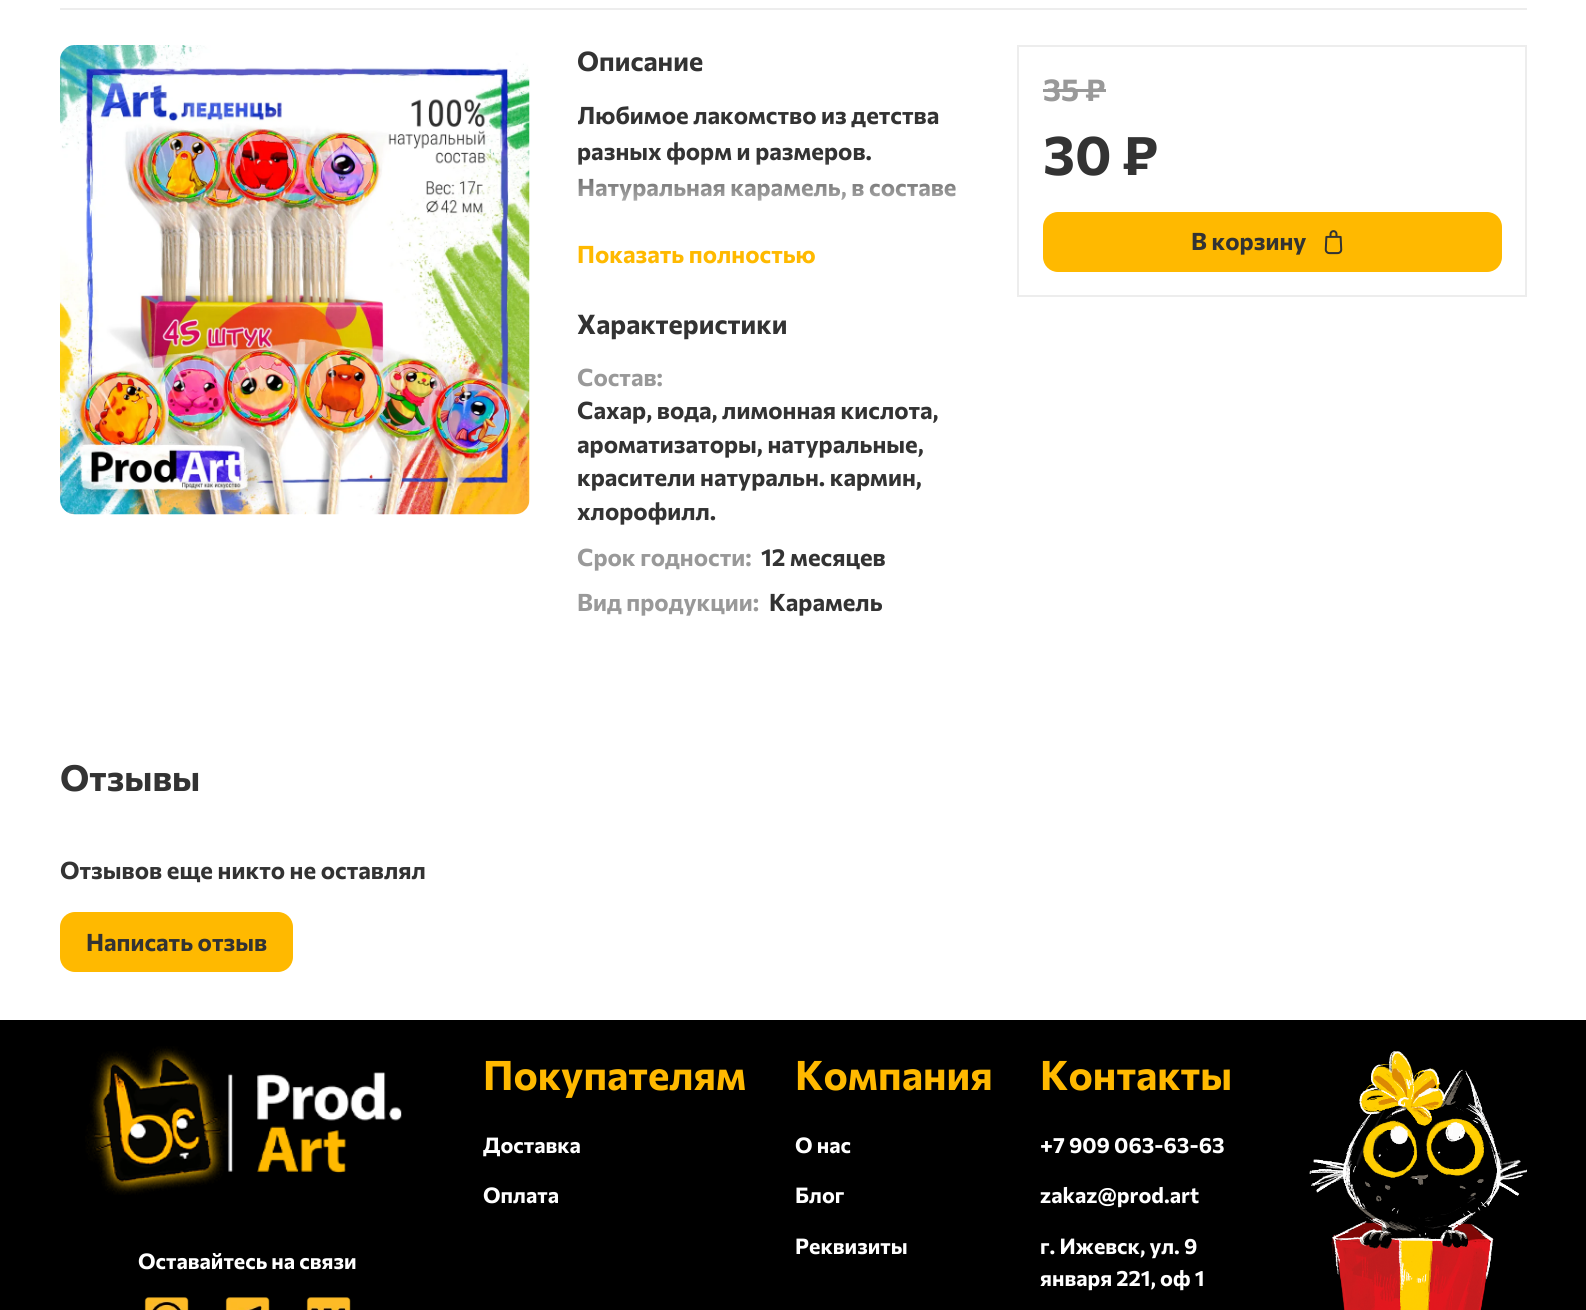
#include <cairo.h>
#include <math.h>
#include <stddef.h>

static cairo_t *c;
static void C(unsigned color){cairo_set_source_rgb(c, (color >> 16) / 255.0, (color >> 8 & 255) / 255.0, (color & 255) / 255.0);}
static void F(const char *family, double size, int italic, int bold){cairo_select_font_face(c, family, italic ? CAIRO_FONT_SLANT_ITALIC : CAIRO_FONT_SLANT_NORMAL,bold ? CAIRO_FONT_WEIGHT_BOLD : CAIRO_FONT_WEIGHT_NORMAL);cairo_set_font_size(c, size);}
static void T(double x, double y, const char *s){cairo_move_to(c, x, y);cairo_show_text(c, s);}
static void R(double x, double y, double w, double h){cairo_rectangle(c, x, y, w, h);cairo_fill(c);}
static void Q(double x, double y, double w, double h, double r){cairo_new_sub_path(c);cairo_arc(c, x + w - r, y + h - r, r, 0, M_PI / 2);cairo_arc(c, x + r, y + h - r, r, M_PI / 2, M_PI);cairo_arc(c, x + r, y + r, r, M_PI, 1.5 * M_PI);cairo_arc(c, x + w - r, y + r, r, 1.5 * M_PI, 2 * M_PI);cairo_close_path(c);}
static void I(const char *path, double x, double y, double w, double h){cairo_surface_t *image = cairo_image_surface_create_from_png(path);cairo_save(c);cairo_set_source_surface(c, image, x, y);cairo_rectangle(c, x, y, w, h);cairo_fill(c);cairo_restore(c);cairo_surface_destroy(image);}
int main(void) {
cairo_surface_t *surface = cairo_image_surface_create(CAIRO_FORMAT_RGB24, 1586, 1310);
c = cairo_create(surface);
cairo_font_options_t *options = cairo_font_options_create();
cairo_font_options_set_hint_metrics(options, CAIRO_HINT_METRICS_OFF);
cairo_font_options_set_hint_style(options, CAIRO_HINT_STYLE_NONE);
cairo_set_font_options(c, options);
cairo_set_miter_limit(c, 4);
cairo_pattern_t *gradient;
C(0xffffff);
cairo_paint(c);
C(0xededed);
R(60,8,1467,2);
I("1.png",60,45,470,470);
F("Commissioner Thin",27,0,0);
C(0x333333);
T(577,71,"Описание");
cairo_save(c);
cairo_rectangle(c,578,98,391,132);
cairo_clip(c);
F("Commissioner Thin",24,0,0);
T(577,124,"Любимое лакомство из детства");
cairo_restore(c);
F("Commissioner Thin",24,0,0);
T(577,160,"разных форм и размеров.");
T(577,196,"Натуральная карамель, в составе");
gradient = cairo_pattern_create_linear(773,230,773,158);
cairo_pattern_add_color_stop_rgba(gradient,0,1,1,1,1);
cairo_pattern_add_color_stop_rgba(gradient,1,1,1,1,0);
cairo_set_source(c,gradient);
cairo_pattern_destroy(gradient);
R(578,160,379,41);
C(0xffb900);
T(577,263,"Показать полностью");
F("Commissioner Thin",27,0,0);
C(0x333333);
T(577,334,"Характеристики");
F("Commissioner Thin",24,0,0);
C(0x999999);
T(577,386,"Состав:");
C(0x333333);
T(577,419,"Сахар, вода, лимонная кислота,");
T(577,453,"ароматизаторы, натуральные,");
T(577,486,"красители натуральн. кармин,");
T(577,520,"хлорофилл.");
C(0x999999);
T(577,566,"Срок годности:");
C(0x333333);
T(761,566,"12 месяцев");
C(0x999999);
T(577,611,"Вид продукции:");
C(0x333333);
T(769,611,"Карамель");
cairo_rectangle(c,1018,46,508,250);
C(0xededed);
cairo_stroke(c);
F("Commissioner Thin",31,0,0);
C(0x999999);
T(1043,101,"35 ₽");
R(1043,89,63,3);
F("Commissioner Thin",55,0,0);
C(0x333333);
T(1043,175,"30 ₽");
C(0xffb900);
Q(1043,212,459,60,15);
cairo_fill(c);
F("Commissioner Thin",24,0,0);
C(0x333333);
T(1191,250,"В корзину");
I("2.png",1324,230,19,25);
F("Commissioner Thin",36,0,0);
T(60,791,"Отзывы");
F("Commissioner Thin",24,0,0);
T(60,879,"Отзывов еще никто не оставлял");
C(0xffb900);
Q(60,912,233,60,15);
cairo_fill(c);
C(0x333333);
T(86,951,"Написать отзыв");
C(0x000000);
R(0,1020,1586,290);
I("3.png",85,1046,317,149);
F("Commissioner Thin",21.6,0,0);
C(0xffffff);
T(138,1269,"Оставайтесь на связи");
I("4.png",144,1297,45,13);
I("5.png",225,1297,45,13);
I("6.png",306,1297,45,13);
F("Commissioner Thin",40.75,0,0);
C(0xffb900);
T(483,1090,"Покупателям");
F("Commissioner Thin",21.6,0,0);
C(0xffffff);
T(483,1153,"Доставка");
T(483,1203,"Оплата");
F("Commissioner Thin",40.75,0,0);
C(0xffb900);
T(795,1090,"Компания");
F("Commissioner Thin",21.6,0,0);
C(0xffffff);
T(795,1153,"О нас");
T(795,1203,"Блог");
T(795,1254,"Реквизиты");
F("Commissioner Thin",40.75,0,0);
C(0xffb900);
T(1040,1090,"Контакты");
F("Commissioner Thin",21.6,0,0);
C(0xffffff);
T(1040,1153,"+7 909 063-63-63");
T(1040,1203,"zakaz@prod.art");
T(1040,1254,"г. Ижевск, ул. 9");
T(1040,1286,"января 221, оф 1");
I("7.png",1309,1051,218,259);
cairo_surface_write_to_png(surface, "o.png");
cairo_font_options_destroy(options);
cairo_destroy(c);
cairo_surface_destroy(surface);
return 0;
}
